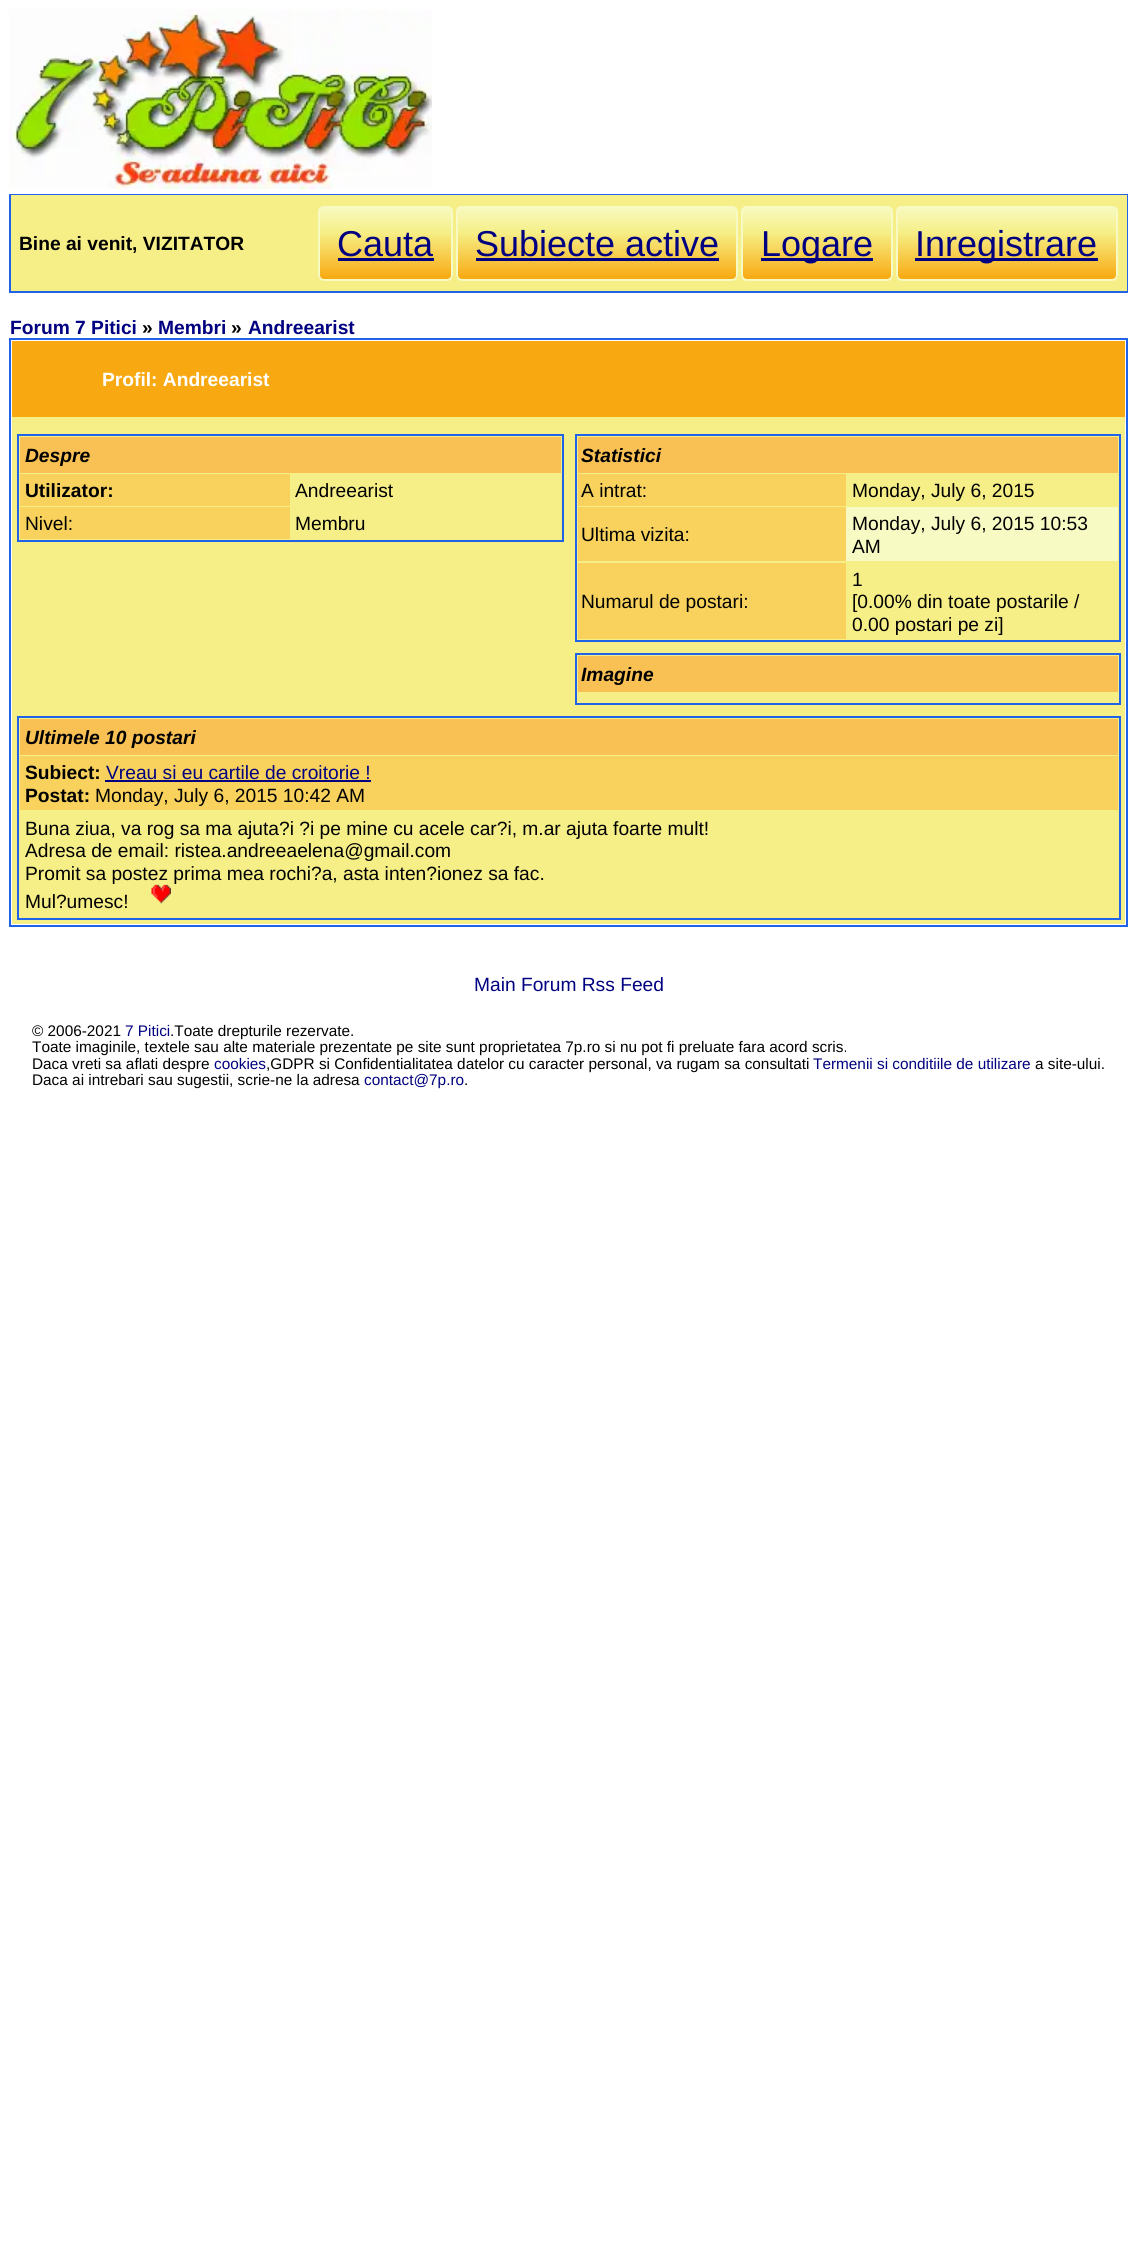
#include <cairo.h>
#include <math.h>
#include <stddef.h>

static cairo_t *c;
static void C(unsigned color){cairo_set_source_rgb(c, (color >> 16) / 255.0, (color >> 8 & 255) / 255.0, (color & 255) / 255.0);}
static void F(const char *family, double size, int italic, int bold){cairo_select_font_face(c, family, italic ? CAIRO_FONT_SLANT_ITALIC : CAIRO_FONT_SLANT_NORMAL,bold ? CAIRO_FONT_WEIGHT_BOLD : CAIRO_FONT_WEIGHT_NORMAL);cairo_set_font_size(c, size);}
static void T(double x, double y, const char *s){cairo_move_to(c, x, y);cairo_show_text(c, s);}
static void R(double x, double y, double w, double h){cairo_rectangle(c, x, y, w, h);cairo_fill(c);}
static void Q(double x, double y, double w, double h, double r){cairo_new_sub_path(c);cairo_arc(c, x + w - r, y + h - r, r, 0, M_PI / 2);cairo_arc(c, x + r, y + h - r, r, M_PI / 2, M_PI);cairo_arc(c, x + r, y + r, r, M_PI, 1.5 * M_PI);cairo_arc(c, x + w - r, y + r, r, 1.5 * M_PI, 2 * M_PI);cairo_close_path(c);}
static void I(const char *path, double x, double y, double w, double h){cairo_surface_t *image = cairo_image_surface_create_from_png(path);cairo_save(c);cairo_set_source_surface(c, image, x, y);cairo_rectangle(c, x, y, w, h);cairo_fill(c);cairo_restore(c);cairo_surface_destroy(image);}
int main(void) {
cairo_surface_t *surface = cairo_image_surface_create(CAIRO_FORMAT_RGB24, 1136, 2260);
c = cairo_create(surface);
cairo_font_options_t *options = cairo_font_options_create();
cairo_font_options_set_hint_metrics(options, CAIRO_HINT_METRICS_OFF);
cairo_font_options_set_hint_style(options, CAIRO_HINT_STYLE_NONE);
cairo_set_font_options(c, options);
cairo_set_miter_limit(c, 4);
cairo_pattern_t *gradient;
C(0xffffff);
cairo_paint(c);
I("1.png",9,9,423,180);
cairo_rectangle(c,10,195,1117,97);
C(0x2163e8);
cairo_stroke(c);
C(0xf6ef87);
R(11,195,1116,96);
F("Liberation Sans",19.2,0,1);
C(0x000000);
T(19,250,"Bine ai venit, VIZITATOR");
cairo_save(c);
Q(318,206,135,75,6);
cairo_clip(c);
gradient = cairo_pattern_create_linear(386,207,386,279);
cairo_pattern_add_color_stop_rgba(gradient,0,0.969,0.98,0.761,1);
cairo_pattern_add_color_stop_rgba(gradient,.35,0.965,0.937,0.529,1);
cairo_pattern_add_color_stop_rgba(gradient,1,0.973,0.663,0.067,1);
cairo_set_source(c,gradient);
cairo_pattern_destroy(gradient);
R(318,207,135,72);
cairo_restore(c);
Q(319,207,133,73,5);
C(0xf7fac2);
cairo_stroke(c);
F("Liberation Sans",36,0,0);
C(0x000080);
T(337,256,"Cauta");
R(338,258,96,3);
cairo_save(c);
Q(456,206,282,75,6);
cairo_clip(c);
gradient = cairo_pattern_create_linear(597,207,597,279);
cairo_pattern_add_color_stop_rgba(gradient,0,0.969,0.98,0.761,1);
cairo_pattern_add_color_stop_rgba(gradient,.35,0.965,0.937,0.529,1);
cairo_pattern_add_color_stop_rgba(gradient,1,0.973,0.663,0.067,1);
cairo_set_source(c,gradient);
cairo_pattern_destroy(gradient);
R(456,207,282,72);
cairo_restore(c);
Q(457,207,280,73,5);
C(0xf7fac2);
cairo_stroke(c);
C(0x000080);
T(475,256,"Subiecte active");
R(476,258,243,3);
cairo_save(c);
Q(741,206,152,75,6);
cairo_clip(c);
gradient = cairo_pattern_create_linear(817,207,817,279);
cairo_pattern_add_color_stop_rgba(gradient,0,0.969,0.98,0.761,1);
cairo_pattern_add_color_stop_rgba(gradient,.35,0.965,0.937,0.529,1);
cairo_pattern_add_color_stop_rgba(gradient,1,0.973,0.663,0.067,1);
cairo_set_source(c,gradient);
cairo_pattern_destroy(gradient);
R(741,207,152,72);
cairo_restore(c);
Q(742,207,150,73,5);
C(0xf7fac2);
cairo_stroke(c);
C(0x000080);
R(761,258,112,3);
T(761,256,"Logare");
cairo_save(c);
Q(896,206,222,75,6);
cairo_clip(c);
gradient = cairo_pattern_create_linear(1007,207,1007,279);
cairo_pattern_add_color_stop_rgba(gradient,0,0.969,0.98,0.761,1);
cairo_pattern_add_color_stop_rgba(gradient,.35,0.965,0.937,0.529,1);
cairo_pattern_add_color_stop_rgba(gradient,1,0.973,0.663,0.067,1);
cairo_set_source(c,gradient);
cairo_pattern_destroy(gradient);
R(896,207,222,72);
cairo_restore(c);
Q(897,207,220,73,5);
C(0xf7fac2);
cairo_stroke(c);
C(0x000080);
R(915,258,183,3);
T(915,256,"Inregistrare");
F("Liberation Sans",19.2,0,1);
T(10,334,"Forum 7 Pitici");
C(0x000000);
T(142,334,"»");
C(0x000080);
T(158,334,"Membri");
C(0x000000);
T(231,334,"»");
C(0x000080);
T(248,334,"Andreearist");
cairo_rectangle(c,10,339,1117,587);
C(0x2163e8);
cairo_stroke(c);
C(0xf6ef87);
R(12,417,1113,507);
C(0xf8a911);
R(12,341,1113,76);
C(0xffffff);
T(102,386,"Profil: Andreearist");
cairo_rectangle(c,18,435,545,106);
C(0x2163e8);
cairo_stroke(c);
C(0xf9c154);
R(20,437,541,36);
F("Liberation Sans",19.2,1,1);
C(0x000000);
T(25,462,"Despre");
C(0xf8d25c);
R(20,474,270,32);
F("Liberation Sans",19.2,0,1);
C(0x000000);
T(25,497,"Utilizator:");
F("Liberation Sans",19.2,0,0);
T(295,497,"Andreearist");
C(0xf8d25c);
R(20,507,270,32);
C(0x000000);
T(25,530,"Nivel:");
T(295,530,"Membru");
cairo_rectangle(c,576,435,544,206);
C(0x2163e8);
cairo_stroke(c);
C(0xf9c154);
R(578,437,540,36);
F("Liberation Sans",19.2,1,1);
C(0x000000);
T(581,462,"Statistici");
C(0xf8d25c);
R(578,474,268,32);
F("Liberation Sans",19.2,0,0);
C(0x000000);
T(581,497,"A intrat:");
T(852,497,"Monday, July 6, 2015");
C(0xf7fac2);
R(846,507,272,54);
C(0xf8d25c);
R(578,507,268,54);
C(0x000000);
T(581,541,"Ultima vizita:");
T(852,530,"Monday, July 6, 2015 10:53");
T(852,553,"AM");
C(0xf8d25c);
R(578,563,268,76);
C(0x000000);
T(581,608,"Numarul de postari:");
T(852,586,"1");
T(852,608,"[0.00% din toate postarile /");
T(852,631,"0.00 postari pe zi]");
cairo_rectangle(c,576,654,544,50);
C(0x2163e8);
cairo_stroke(c);
C(0xf9c154);
R(578,656,540,36);
F("Liberation Sans",19.2,1,1);
C(0x000000);
T(581,681,"Imagine");
cairo_rectangle(c,18,717,1102,202);
C(0x2163e8);
cairo_stroke(c);
C(0xf9c154);
R(20,719,1098,36);
C(0x000000);
T(25,744,"Ultimele 10 postari");
C(0xf8d25c);
R(20,756,1098,54);
F("Liberation Sans",19.2,0,1);
C(0x000000);
T(25,779,"Subiect:");
F("Liberation Sans",19.2,0,0);
C(0x000080);
T(106,779,"Vreau si eu cartile de croitorie !");
R(105,780,266,2);
F("Liberation Sans",19.2,0,1);
C(0x000000);
T(25,802,"Postat:");
F("Liberation Sans",19.2,0,0);
T(95,802,"Monday, July 6, 2015 10:42 AM");
T(25,835,"Buna ziua, va rog sa ma ajuta?i ?i pe mine cu acele car?i, m.ar ajuta foarte mult!");
T(25,857,"Adresa de email: ristea.andreeaelena@gmail.com");
T(25,880,"Promit sa postez prima mea rochi?a, asta inten?ionez sa fac.");
T(25,908,"Mul?umesc!");
I("2.png",151,884,20,20);
C(0x000080);
T(474,991,"Main Forum Rss Feed");
F("Liberation Sans",15.35,0,0);
C(0x000000);
T(32,1036,"© 2006-2021");
C(0x000080);
T(125,1036,"7 Pitici");
C(0x000000);
T(170,1036,".Toate drepturile rezervate.");
T(32,1052,"Toate imaginile, textele sau alte materiale prezentate pe site sunt proprietatea 7p.ro si nu pot fi preluate fara acord scris.");
T(32,1069,"Daca vreti sa aflati despre");
C(0x000080);
T(214,1069,"cookies");
C(0x000000);
T(266,1069,",GDPR si Confidentialitatea datelor cu caracter personal, va rugam sa consultati");
C(0x000080);
T(813,1069,"Termenii si conditiile de utilizare");
C(0x000000);
T(1035,1069,"a site-ului.");
T(32,1085,"Daca ai intrebari sau sugestii, scrie-ne la adresa");
C(0x000080);
T(364,1085,"contact@7p.ro");
C(0x000000);
T(464,1085,".");
cairo_surface_write_to_png(surface, "o.png");
cairo_font_options_destroy(options);
cairo_destroy(c);
cairo_surface_destroy(surface);
return 0;
}
